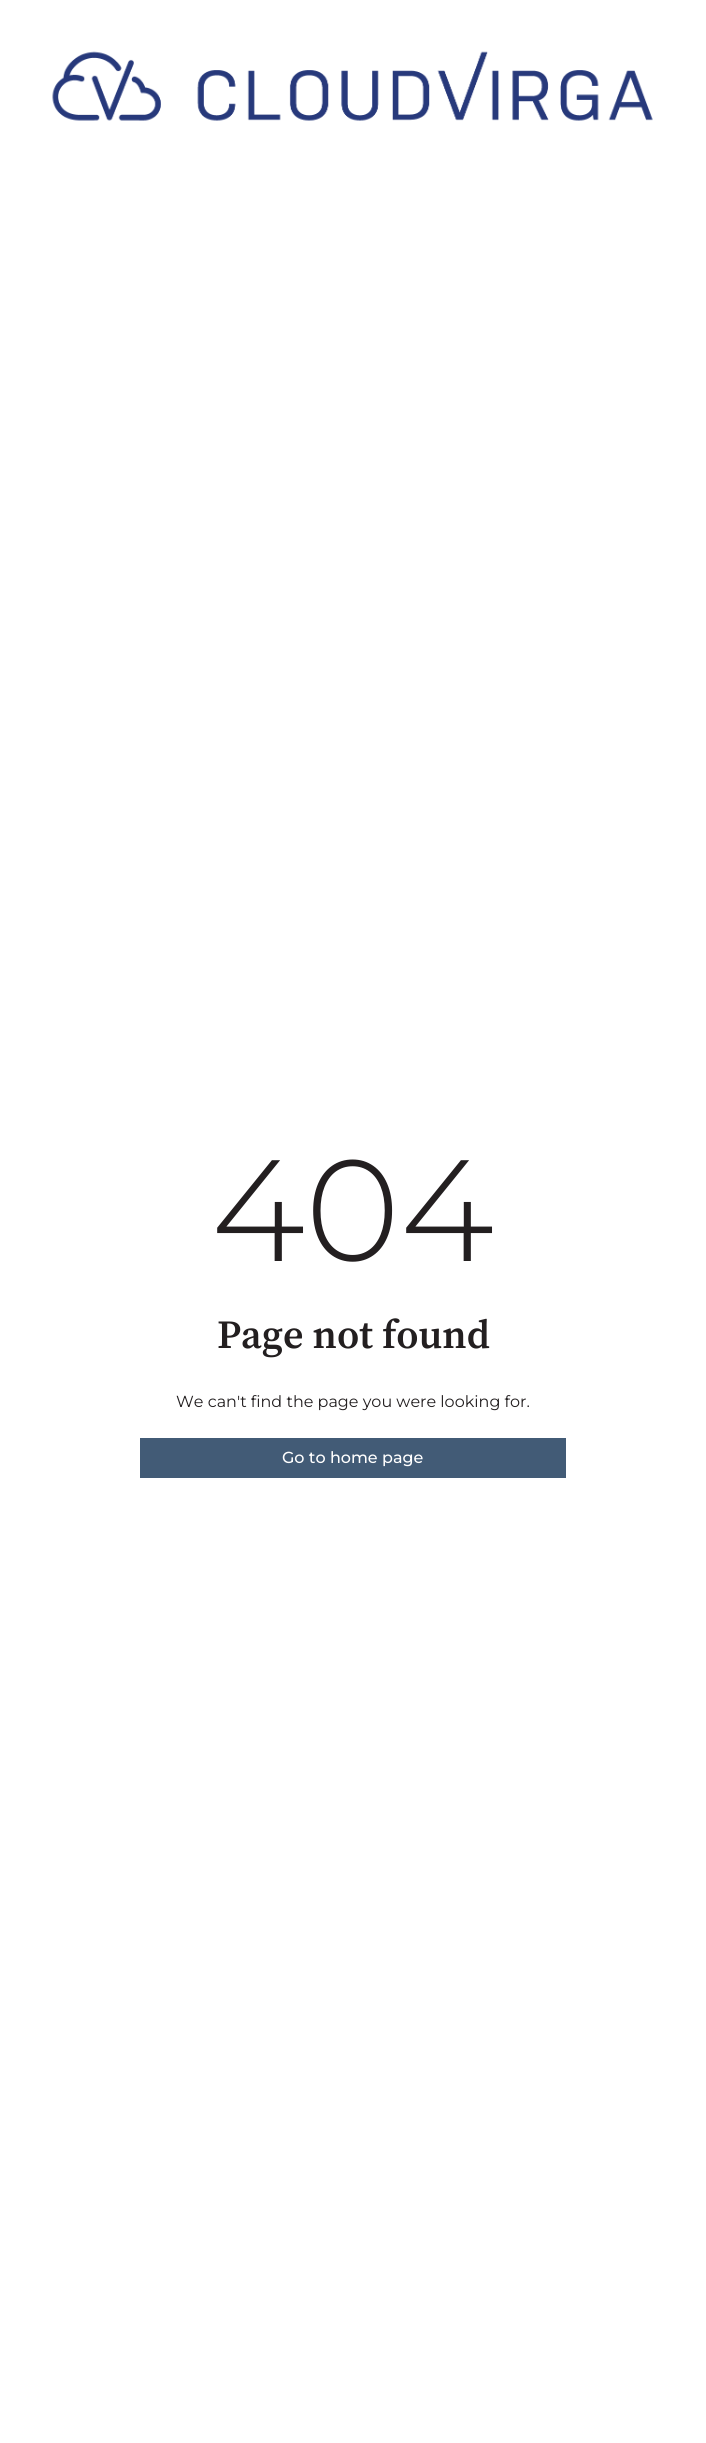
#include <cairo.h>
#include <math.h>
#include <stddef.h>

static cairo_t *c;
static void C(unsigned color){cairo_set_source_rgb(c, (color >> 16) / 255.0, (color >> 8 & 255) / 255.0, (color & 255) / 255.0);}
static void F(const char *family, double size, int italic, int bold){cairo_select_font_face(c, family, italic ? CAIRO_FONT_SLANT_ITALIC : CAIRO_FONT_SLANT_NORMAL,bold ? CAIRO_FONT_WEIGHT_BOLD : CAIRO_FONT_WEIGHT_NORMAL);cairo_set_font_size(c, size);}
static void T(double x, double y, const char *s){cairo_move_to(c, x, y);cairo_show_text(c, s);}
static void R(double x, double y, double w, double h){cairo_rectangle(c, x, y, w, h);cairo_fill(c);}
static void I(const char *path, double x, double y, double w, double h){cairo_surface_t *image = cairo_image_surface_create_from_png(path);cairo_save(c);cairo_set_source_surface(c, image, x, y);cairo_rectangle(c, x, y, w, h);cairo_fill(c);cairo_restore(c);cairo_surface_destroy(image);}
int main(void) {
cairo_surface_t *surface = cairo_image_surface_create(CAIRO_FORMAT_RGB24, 706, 2443);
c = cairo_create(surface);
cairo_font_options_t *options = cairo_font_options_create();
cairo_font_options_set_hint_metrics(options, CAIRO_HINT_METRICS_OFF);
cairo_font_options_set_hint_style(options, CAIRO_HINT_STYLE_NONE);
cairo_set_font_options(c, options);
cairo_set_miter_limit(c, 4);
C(0xffffff);
cairo_paint(c);
I("1.png",52,51,601,70);
F("Montserrat Light",144,0,0);
C(0x231f20);
T(211,1261,"404");
F("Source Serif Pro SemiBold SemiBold",40,0,0);
T(217,1348,"Page not found");
F("Montserrat",16,0,0);
T(176,1407,"We can't find the page you were looking for.");
C(0x425b76);
R(140,1438,426,40);
F("Montserrat Medium",16,0,0);
C(0xffffff);
T(282,1463,"Go to home page");
cairo_surface_write_to_png(surface, "o.png");
cairo_font_options_destroy(options);
cairo_destroy(c);
cairo_surface_destroy(surface);
return 0;
}
